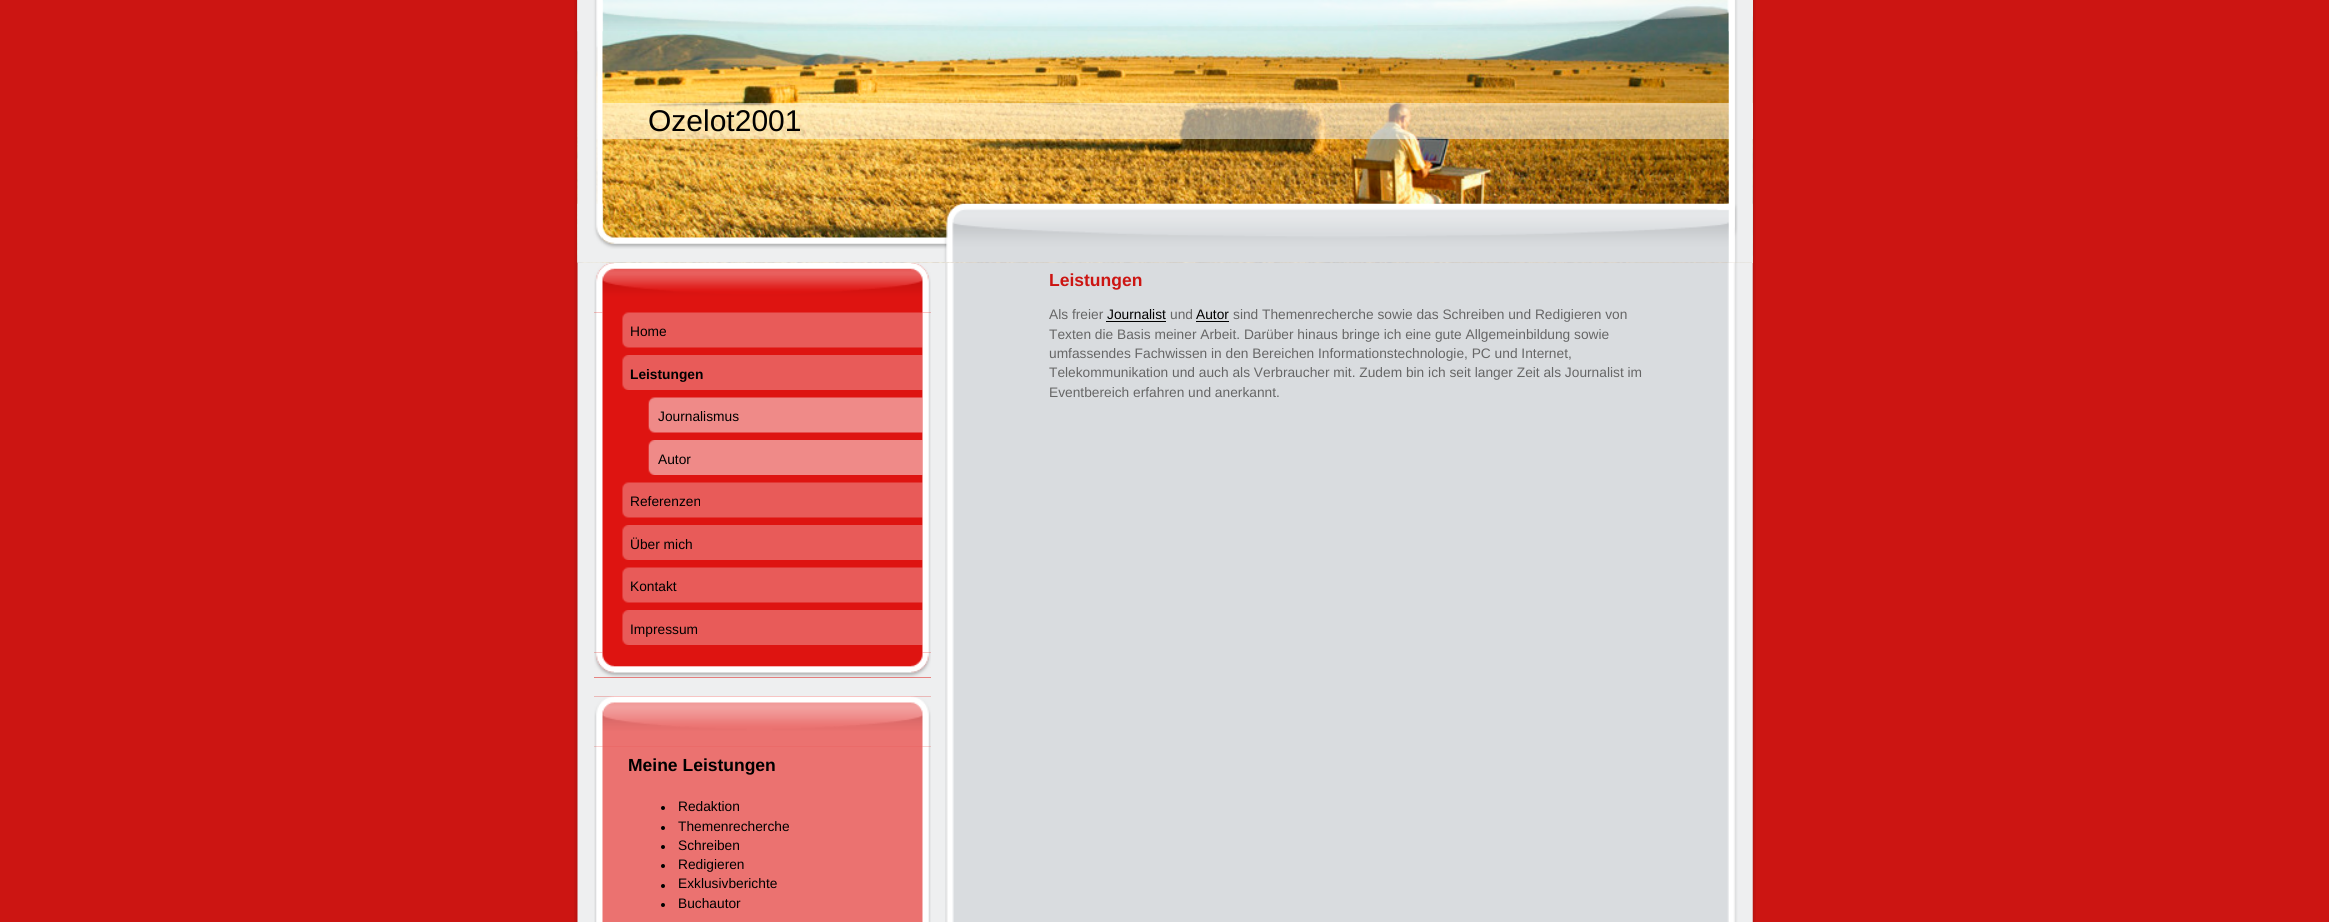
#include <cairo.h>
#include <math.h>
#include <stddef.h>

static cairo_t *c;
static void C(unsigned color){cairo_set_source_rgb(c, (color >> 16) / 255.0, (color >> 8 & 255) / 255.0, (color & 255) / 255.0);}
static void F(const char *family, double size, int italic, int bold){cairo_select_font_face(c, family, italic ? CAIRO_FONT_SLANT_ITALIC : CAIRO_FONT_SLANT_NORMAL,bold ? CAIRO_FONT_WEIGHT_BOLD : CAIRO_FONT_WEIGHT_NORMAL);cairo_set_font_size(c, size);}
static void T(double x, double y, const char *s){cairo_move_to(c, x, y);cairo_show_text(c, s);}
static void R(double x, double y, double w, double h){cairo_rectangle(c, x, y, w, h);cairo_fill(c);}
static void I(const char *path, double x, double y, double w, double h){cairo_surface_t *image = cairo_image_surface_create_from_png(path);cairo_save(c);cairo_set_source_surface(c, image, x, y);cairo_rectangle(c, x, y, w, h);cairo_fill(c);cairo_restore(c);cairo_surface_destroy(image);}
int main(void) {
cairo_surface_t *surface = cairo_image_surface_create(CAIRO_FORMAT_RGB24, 2329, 922);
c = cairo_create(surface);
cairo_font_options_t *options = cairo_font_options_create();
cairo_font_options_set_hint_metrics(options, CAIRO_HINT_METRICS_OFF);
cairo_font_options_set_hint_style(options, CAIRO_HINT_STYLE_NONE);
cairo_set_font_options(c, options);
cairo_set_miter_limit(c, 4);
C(0xcc1512);
cairo_paint(c);
I("1.png",574,0,1182,922);
C(0xeeeeee);
R(1752,0,1,263);
I("4.png",577,0,1176,263);
I("2.png",577,0,1176,32);
cairo_set_source_rgba(c,1,1,1,0.5);
R(596,103,1157,36);
I("6.png",577,203,1176,60);
I("3.png",577,0,26,263);
F("Liberation Sans",30,0,0);
C(0x000000);
T(648,131,"Ozelot2001");
I("5.png",1727,0,26,263);
C(0xde1411);
R(594,263,337,415);
I("7.png",594,263,337,50);
I("8.png",594,652,337,26);
I("9.png",594,312,337,341);
I("10.png",622,312,301,36);
F("Liberation Sans",13.75,0,0);
C(0x000000);
T(630,336,"Home");
I("11.png",622,355,301,35);
F("Liberation Sans",13.75,0,1);
T(630,379,"Leistungen");
I("12.png",648,397,275,36);
F("Liberation Sans",13.75,0,0);
T(658,421,"Journalismus");
I("13.png",648,440,275,35);
T(658,464,"Autor");
I("14.png",622,482,301,36);
T(630,506,"Referenzen");
I("11.png",622,525,301,35);
T(630,549,"Über mich");
I("15.png",622,567,301,36);
T(630,591,"Kontakt");
I("11.png",622,610,301,35);
T(630,634,"Impressum");
C(0xde1411);
R(594,696,337,226);
I("16.png",594,696,337,51);
I("17.png",594,746,337,176);
F("Liberation Sans",17.5,0,1);
C(0x000000);
T(628,771,"Meine Leistungen");
cairo_new_path(c);
cairo_arc(c,663,808,2,0,2 * M_PI);
cairo_fill(c);
F("Liberation Sans",13.75,0,0);
T(678,811,"Redaktion");
cairo_new_path(c);
cairo_arc(c,663,828,2,0,2 * M_PI);
cairo_fill(c);
T(678,831,"Themenrecherche");
cairo_new_path(c);
cairo_arc(c,663,847,2,0,2 * M_PI);
cairo_fill(c);
T(678,850,"Schreiben");
cairo_new_path(c);
cairo_arc(c,663,866,2,0,2 * M_PI);
cairo_fill(c);
T(678,869,"Redigieren");
cairo_new_path(c);
cairo_arc(c,663,886,2,0,2 * M_PI);
cairo_fill(c);
T(678,888,"Exklusivberichte");
cairo_new_path(c);
cairo_arc(c,663,905,2,0,2 * M_PI);
cairo_fill(c);
T(678,908,"Buchautor");
I("18.png",945,263,808,659);
F("Liberation Sans",17.5,0,1);
C(0xcc1512);
T(1049,286,"Leistungen");
F("Liberation Sans",13.75,0,0);
C(0x666666);
T(1049,319,"Als freier");
C(0x000000);
T(1107,319,"Journalist");
R(1106,321,60,1);
C(0x666666);
T(1170,319,"und");
C(0x000000);
T(1196,319,"Autor");
R(1196,321,33,1);
C(0x666666);
T(1233,319,"sind Themenrecherche sowie das Schreiben und Redigieren von");
T(1049,339,"Texten die Basis meiner Arbeit. Darüber hinaus bringe ich eine gute Allgemeinbildung sowie");
T(1049,358,"umfassendes Fachwissen in den Bereichen Informationstechnologie, PC und Internet,");
T(1049,377,"Telekommunikation und auch als Verbraucher mit. Zudem bin ich seit langer Zeit als Journalist im");
T(1049,397,"Eventbereich erfahren und anerkannt.");
cairo_surface_write_to_png(surface, "o.png");
cairo_font_options_destroy(options);
cairo_destroy(c);
cairo_surface_destroy(surface);
return 0;
}
